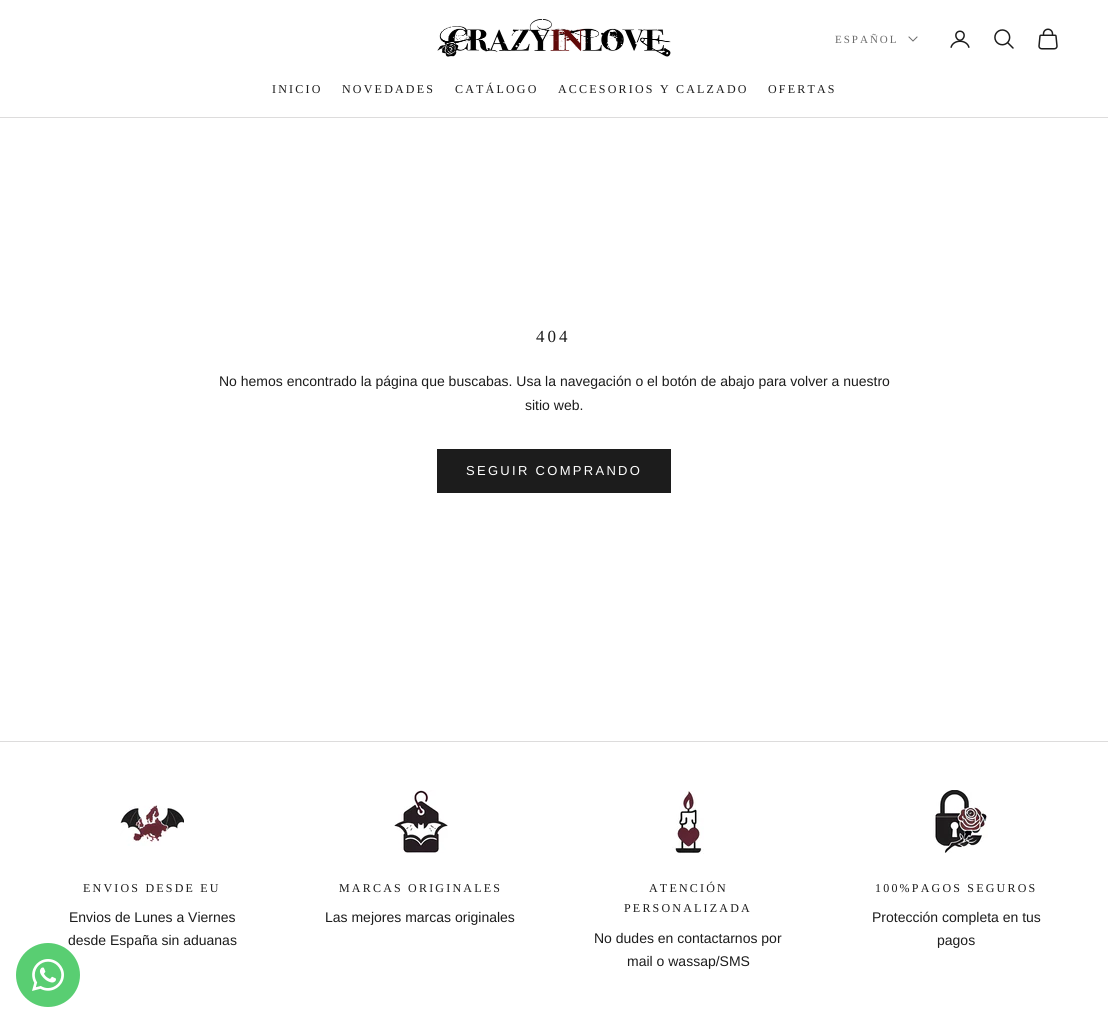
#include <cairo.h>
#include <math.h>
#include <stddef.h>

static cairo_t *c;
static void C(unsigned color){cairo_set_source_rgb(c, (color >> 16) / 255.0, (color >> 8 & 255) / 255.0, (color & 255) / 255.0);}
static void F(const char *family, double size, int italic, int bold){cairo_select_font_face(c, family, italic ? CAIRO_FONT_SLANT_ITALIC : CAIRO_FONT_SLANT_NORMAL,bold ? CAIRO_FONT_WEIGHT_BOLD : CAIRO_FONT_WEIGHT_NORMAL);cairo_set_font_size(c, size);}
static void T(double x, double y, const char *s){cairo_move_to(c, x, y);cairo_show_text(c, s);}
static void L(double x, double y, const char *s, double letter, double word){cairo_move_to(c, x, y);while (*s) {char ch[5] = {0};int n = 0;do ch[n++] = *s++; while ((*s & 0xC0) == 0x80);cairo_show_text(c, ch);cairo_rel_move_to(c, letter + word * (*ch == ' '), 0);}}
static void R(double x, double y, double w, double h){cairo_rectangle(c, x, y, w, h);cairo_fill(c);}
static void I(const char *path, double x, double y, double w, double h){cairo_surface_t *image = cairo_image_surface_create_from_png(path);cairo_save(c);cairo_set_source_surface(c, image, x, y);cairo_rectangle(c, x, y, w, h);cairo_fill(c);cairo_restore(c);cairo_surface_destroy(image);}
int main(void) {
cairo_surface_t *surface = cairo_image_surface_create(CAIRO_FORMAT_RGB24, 1108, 1023);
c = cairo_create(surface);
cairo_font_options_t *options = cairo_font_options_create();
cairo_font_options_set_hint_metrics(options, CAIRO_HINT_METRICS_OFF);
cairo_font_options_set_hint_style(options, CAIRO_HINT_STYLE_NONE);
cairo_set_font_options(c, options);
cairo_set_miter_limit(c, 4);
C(0xffffff);
cairo_paint(c);
C(0xdddcdc);
R(0,117,1108,1);
I("1.png",437,19,234,38);
F("Liberation Serif",11,0,0);
C(0x6b6b6b);
L(835,43,"ESPAÑOL",2,0);
cairo_new_path(c);
cairo_move_to(c,909,37);
cairo_line_to(c,913,41);
cairo_line_to(c,917,37);
cairo_set_line_width(c,1);
cairo_set_line_cap(c,CAIRO_LINE_CAP_SQUARE);
cairo_stroke(c);
I("2.png",950,30,20,18);
I("3.png",994,29,20,20);
I("4.png",1038,28,20,22);
F("Liberation Serif",12,0,0);
C(0x1c1c1c);
L(272,93,"INICIO",2.2,0);
L(342,93,"NOVEDADES",2.2,0);
L(455,93,"CATÁLOGO",2.2,0);
L(558,93,"ACCESORIOS Y CALZADO",2.2,0);
L(768,93,"OFERTAS",2.2,0);
F("Liberation Sans",14,0,0);
T(68,945,"desde España sin aduanas");
C(0x59ce72);
cairo_new_path(c);
cairo_arc(c,48,975,32,0,2 * M_PI);
cairo_fill(c);
I("5.png",32,959,32,32);
F("Liberation Serif",17,0,0);
C(0x1c1c1c);
L(536,342,"404",3,0);
F("Liberation Sans",14,0,0);
T(219,386,"No hemos encontrado la página que buscabas. Usa la navegación o el botón de abajo para volver a nuestro");
T(525,410,"sitio web.");
cairo_rectangle(c,437.5,449.5,233,43);
cairo_fill_preserve(c);
cairo_set_line_cap(c,CAIRO_LINE_CAP_BUTT);
cairo_stroke(c);
F("Liberation Sans",13,0,0);
C(0xffffff);
L(466,475,"SEGUIR COMPRANDO",2.3,0);
C(0xdddcdc);
R(0,741,1108,1);
I("6.png",120,805,64,41);
F("Liberation Serif",12,0,0);
C(0x1c1c1c);
L(83,892,"ENVIOS DESDE EU",2.2,0);
F("Liberation Sans",14,0,0);
T(69,922,"Envios de Lunes a Viernes");
I("7.png",393,790,55,63);
F("Liberation Serif",12,0,0);
L(339,892,"MARCAS ORIGINALES",2.2,0);
F("Liberation Sans",14,0,0);
T(325,922,"Las mejores marcas originales");
I("8.png",672,790,32,64);
F("Liberation Serif",12,0,0);
L(649,892,"ATENCIÓN",2.2,0);
L(624,912,"PERSONALIZADA",2.2,0);
F("Liberation Sans",14,0,0);
T(594,943,"No dudes en contactarnos por");
T(627,966,"mail o wassap/SMS");
I("9.png",932,790,56,63);
F("Liberation Serif",12,0,0);
L(875,892,"100%PAGOS SEGUROS",2.2,0);
F("Liberation Sans",14,0,0);
T(872,922,"Protección completa en tus");
T(937,945,"pagos");
cairo_surface_write_to_png(surface, "o.png");
cairo_font_options_destroy(options);
cairo_destroy(c);
cairo_surface_destroy(surface);
return 0;
}
